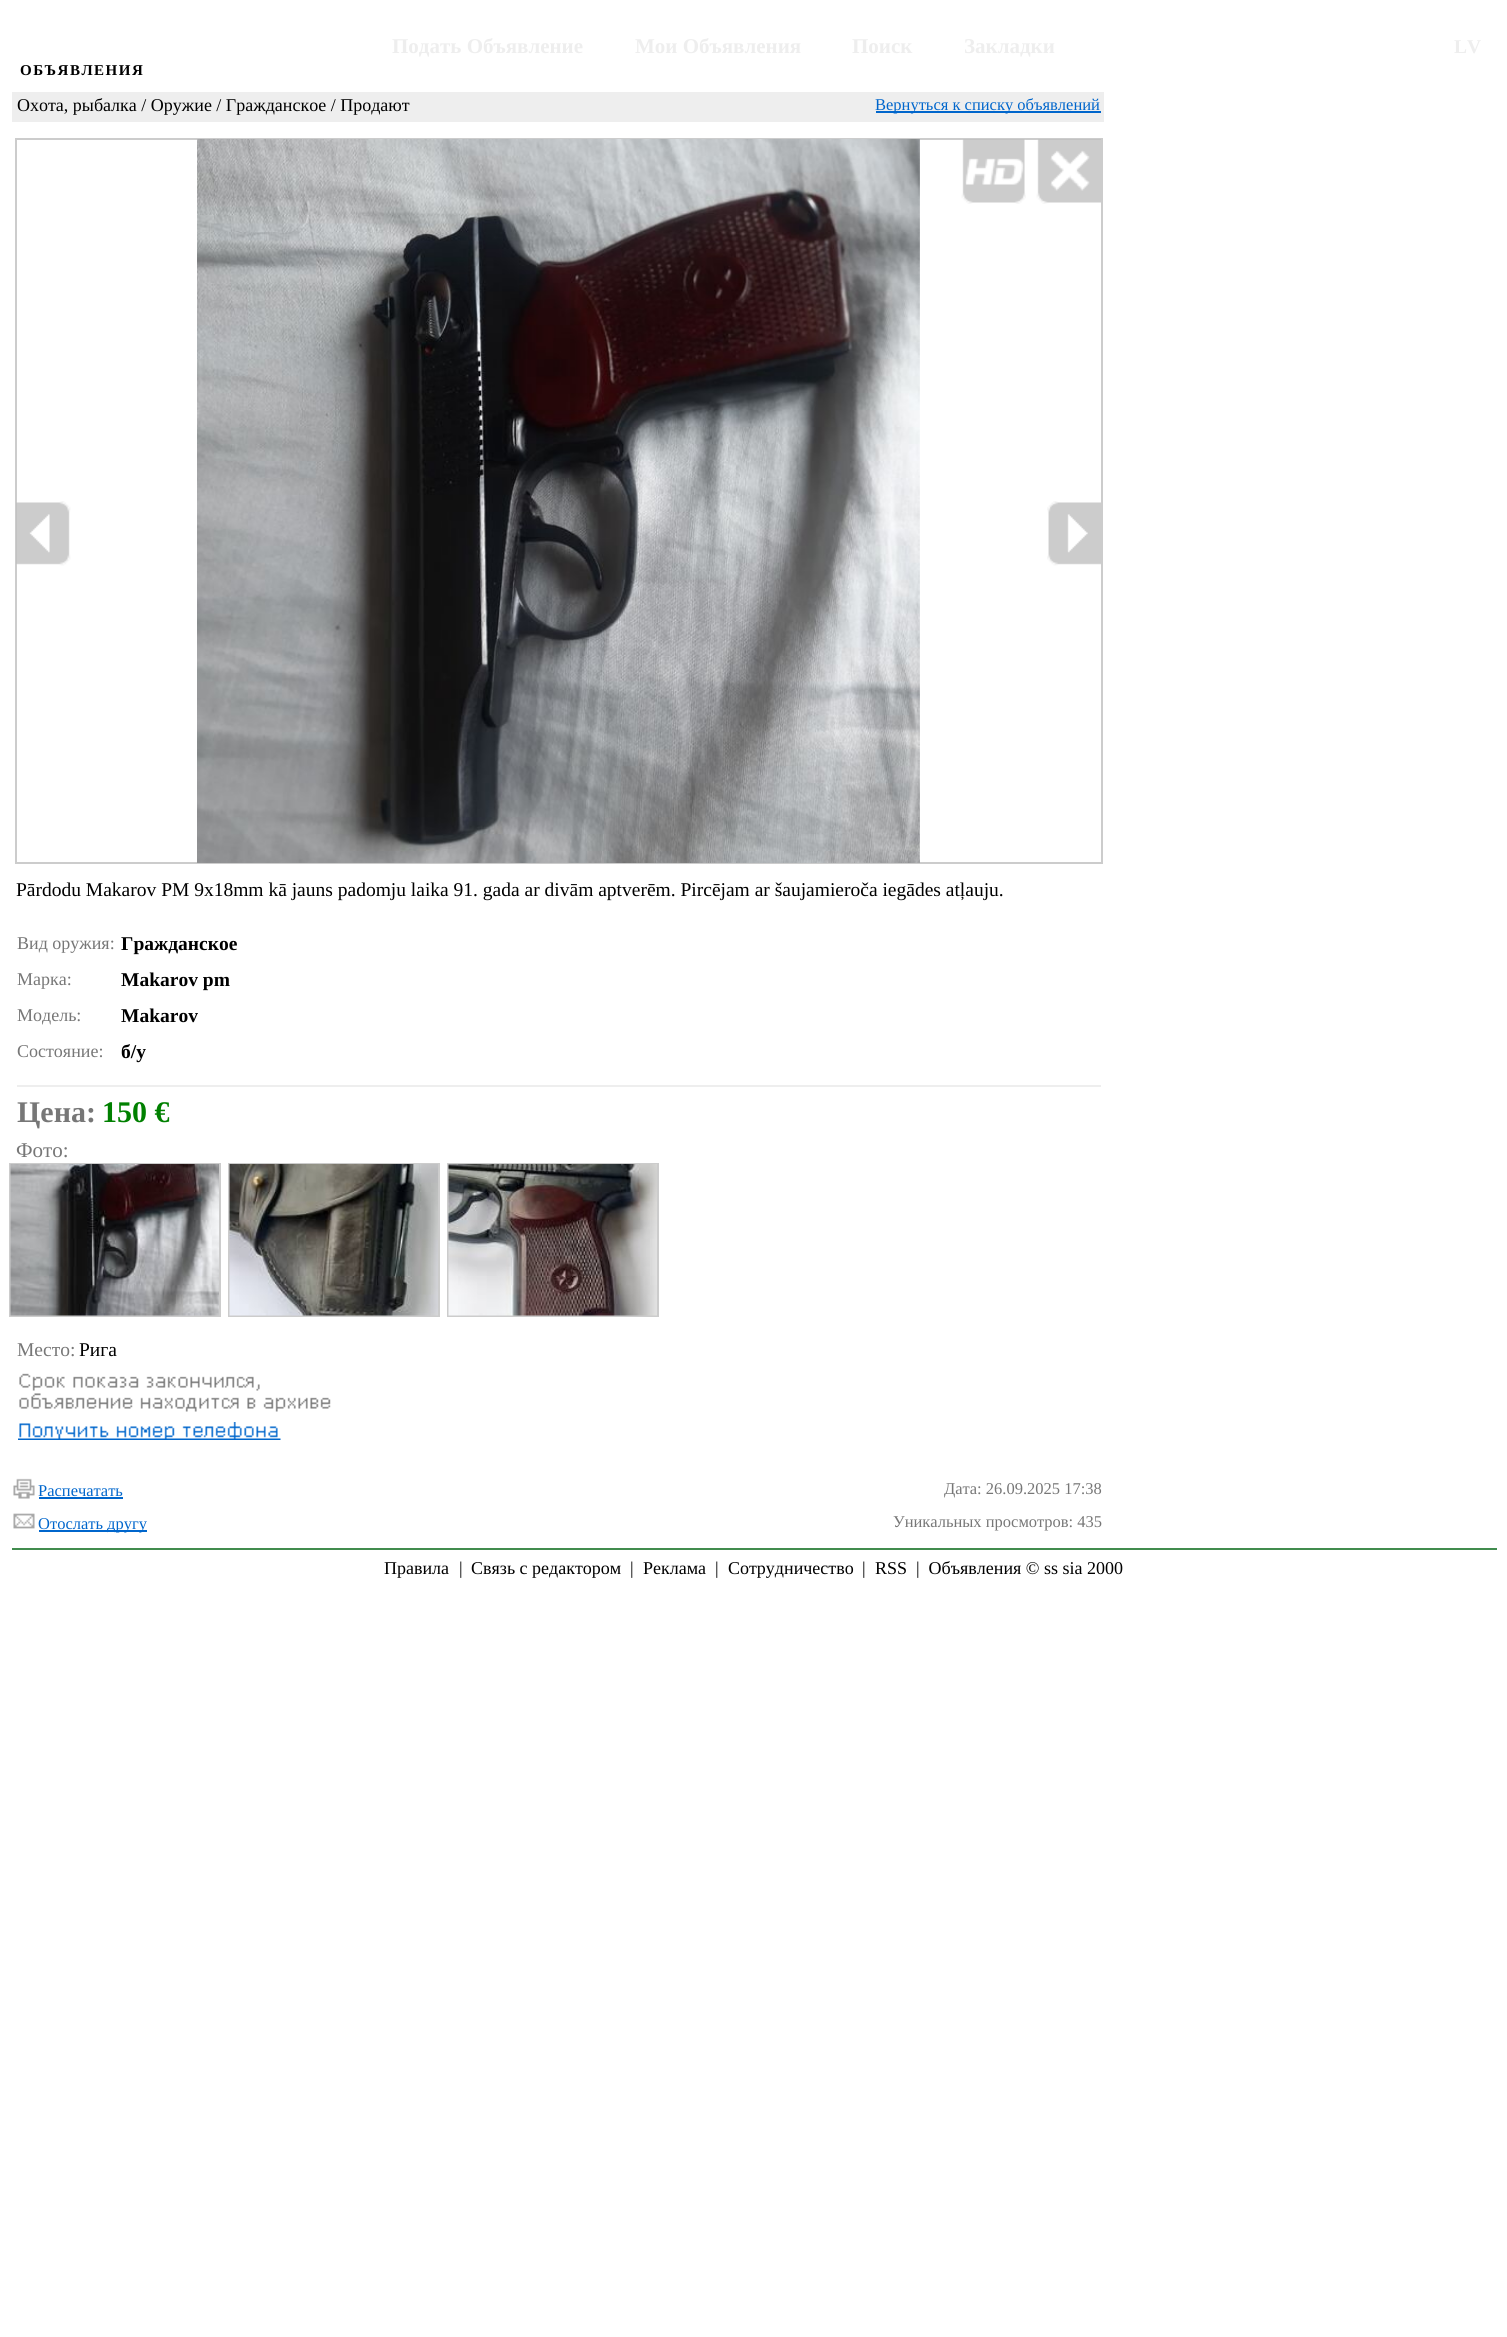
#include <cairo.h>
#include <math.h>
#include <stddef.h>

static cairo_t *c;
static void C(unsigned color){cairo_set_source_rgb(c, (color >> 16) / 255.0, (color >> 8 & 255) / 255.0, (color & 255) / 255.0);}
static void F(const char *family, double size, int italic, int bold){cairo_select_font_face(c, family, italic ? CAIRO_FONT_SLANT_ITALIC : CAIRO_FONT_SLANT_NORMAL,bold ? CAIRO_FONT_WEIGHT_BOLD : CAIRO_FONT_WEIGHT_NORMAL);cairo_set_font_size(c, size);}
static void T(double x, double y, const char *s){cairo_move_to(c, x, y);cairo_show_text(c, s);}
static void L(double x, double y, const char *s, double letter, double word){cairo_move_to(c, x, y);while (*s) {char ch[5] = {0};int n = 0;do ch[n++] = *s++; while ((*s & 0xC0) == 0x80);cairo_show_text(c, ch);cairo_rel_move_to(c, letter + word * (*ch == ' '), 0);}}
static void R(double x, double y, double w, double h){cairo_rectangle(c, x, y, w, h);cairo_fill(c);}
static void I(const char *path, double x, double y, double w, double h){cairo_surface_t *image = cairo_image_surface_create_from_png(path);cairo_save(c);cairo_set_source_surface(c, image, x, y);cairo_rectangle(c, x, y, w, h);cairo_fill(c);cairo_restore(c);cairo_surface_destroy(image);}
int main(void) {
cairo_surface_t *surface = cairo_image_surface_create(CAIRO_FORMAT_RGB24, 1507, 2337);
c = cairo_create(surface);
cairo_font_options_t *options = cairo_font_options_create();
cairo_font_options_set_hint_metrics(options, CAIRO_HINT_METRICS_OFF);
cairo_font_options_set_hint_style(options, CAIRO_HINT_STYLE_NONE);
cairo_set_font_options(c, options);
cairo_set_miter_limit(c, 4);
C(0xffffff);
cairo_paint(c);
F("Liberation Serif",21,0,1);
C(0xeeeeee);
T(392,53,"Подать Объявление");
T(635,53,"Мои Объявления");
T(852,53,"Поиск");
T(964,53,"Закладки");
F("Liberation Serif",19.5,0,1);
T(1454,53,"LV");
F("Liberation Serif",15,0,1);
C(0x000000);
L(20,75,"ОБЪЯВЛЕНИЯ",1.5,0);
C(0xeeeeee);
R(12,92,1092,30);
F("Liberation Serif",18,0,0);
C(0x000000);
T(17,111,"Охота, рыбалка / Оружие / Гражданское / Продают");
C(0x0066cc);
R(876,111,225,2);
F("Liberation Serif",16.5,0,0);
T(875,110,"Вернуться к списку объявлений");
cairo_rectangle(c,16,139,1086,724);
C(0xcccccc);
cairo_stroke(c);
I("1.png",197,139,723,724);
I("2.png",961,139,65,65);
I("3.png",1036,139,65,65);
I("4.png",16,501,55,65);
I("5.png",1047,501,54,65);
F("Liberation Serif",19.5,0,0);
C(0x000000);
T(16,896,"Pārdodu Makarov PM 9x18mm kā jauns padomju laika 91. gada ar divām aptverēm. Pircējam ar šaujamieroča iegādes atļauju.");
F("Liberation Serif",18,0,0);
C(0x777777);
T(17,949,"Вид оружия:");
F("Liberation Serif",19.5,0,1);
C(0x000000);
T(121,950,"Гражданское");
F("Liberation Serif",18,0,0);
C(0x777777);
T(17,985,"Марка:");
F("Liberation Serif",19.5,0,1);
C(0x000000);
T(121,986,"Makarov pm");
F("Liberation Serif",18,0,0);
C(0x777777);
T(17,1021,"Модель:");
F("Liberation Serif",19.5,0,1);
C(0x000000);
T(121,1022,"Makarov");
F("Liberation Serif",18,0,0);
C(0x777777);
T(17,1057,"Состояние:");
F("Liberation Serif",19.5,0,1);
C(0x000000);
T(121,1058,"б/у");
C(0xeeeeee);
R(17,1085,1084,2);
F("Liberation Serif",30,0,1);
C(0x777777);
T(17,1122,"Цена:");
C(0x008000);
T(102,1122,"150 €");
F("Liberation Serif",21,0,0);
C(0x777777);
T(16,1157,"Фото:");
cairo_rectangle(c,10,1164,210,152);
C(0xcccccc);
cairo_stroke(c);
I("6.png",10,1164,209,152);
cairo_rectangle(c,229,1164,210,152);
cairo_stroke(c);
I("7.png",229,1164,209,152);
cairo_rectangle(c,448,1164,210,152);
cairo_stroke(c);
I("8.png",448,1164,209,152);
F("Liberation Serif",19.5,0,0);
C(0x777777);
T(17,1356,"Место:");
C(0x000000);
T(79,1356,"Рига");
I("9.png",19,1373,312,39);
I("10.png",18,1422,263,18);
I("11.png",13,1478,22,21);
F("Liberation Serif",16.5,0,0);
C(0x0066cc);
T(38,1496,"Распечатать");
R(39,1497,84,2);
C(0x777777);
T(944,1494,"Дата: 26.09.2025 17:38");
I("12.png",13,1513,22,16);
C(0x0066cc);
R(39,1530,108,2);
T(38,1529,"Отослать другу");
C(0x777777);
T(893,1527,"Уникальных просмотров: 435");
C(0x418c4e);
R(12,1548,1485,2);
F("Liberation Serif",18,0,0);
C(0x000000);
T(384,1574,"Правила");
T(459,1574,"|");
T(471,1574,"Связь с редактором");
T(630,1574,"|");
T(643,1574,"Реклама");
T(715,1574,"|");
T(728,1574,"Сотрудничество");
T(862,1574,"|");
T(875,1574,"RSS");
T(916,1574,"|  Объявления © ss sia 2000");
cairo_surface_write_to_png(surface, "o.png");
cairo_font_options_destroy(options);
cairo_destroy(c);
cairo_surface_destroy(surface);
return 0;
}
